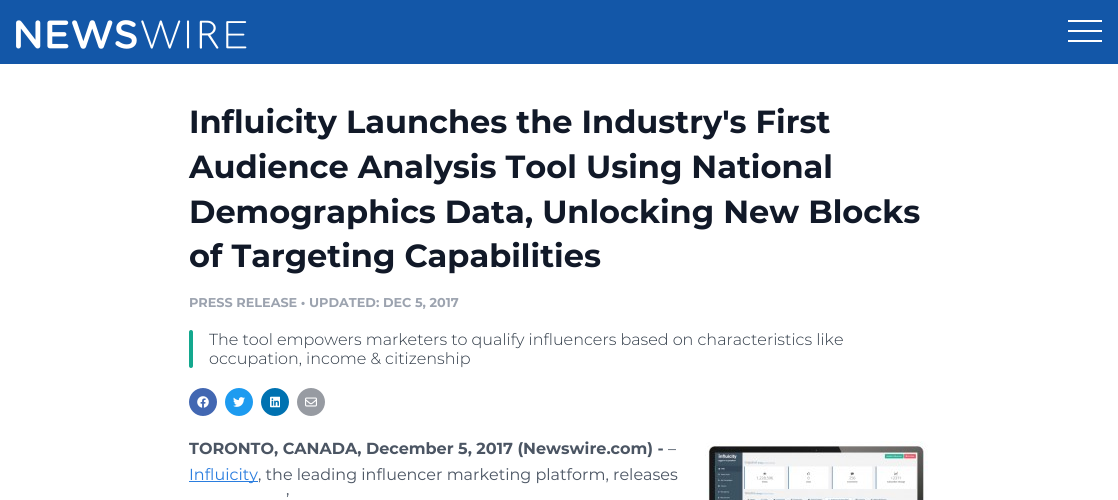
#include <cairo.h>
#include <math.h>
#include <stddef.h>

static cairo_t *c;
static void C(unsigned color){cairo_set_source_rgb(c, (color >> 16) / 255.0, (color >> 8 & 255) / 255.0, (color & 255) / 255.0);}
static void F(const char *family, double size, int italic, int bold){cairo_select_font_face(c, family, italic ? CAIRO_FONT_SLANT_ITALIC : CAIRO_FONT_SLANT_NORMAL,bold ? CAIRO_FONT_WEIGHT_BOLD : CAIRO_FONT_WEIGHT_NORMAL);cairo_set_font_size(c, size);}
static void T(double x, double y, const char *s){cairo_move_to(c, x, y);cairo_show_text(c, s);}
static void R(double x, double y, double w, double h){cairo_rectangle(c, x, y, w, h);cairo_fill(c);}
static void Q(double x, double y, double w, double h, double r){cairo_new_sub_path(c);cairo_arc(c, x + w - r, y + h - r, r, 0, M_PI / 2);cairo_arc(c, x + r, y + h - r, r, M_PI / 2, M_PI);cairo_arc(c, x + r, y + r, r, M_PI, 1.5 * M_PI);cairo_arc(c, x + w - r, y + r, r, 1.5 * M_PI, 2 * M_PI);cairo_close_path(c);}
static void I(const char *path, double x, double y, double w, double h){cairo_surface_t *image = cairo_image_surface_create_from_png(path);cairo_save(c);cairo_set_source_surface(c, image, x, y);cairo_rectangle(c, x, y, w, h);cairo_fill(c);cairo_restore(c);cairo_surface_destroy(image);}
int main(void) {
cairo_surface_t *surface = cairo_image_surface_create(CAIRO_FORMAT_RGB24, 1118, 500);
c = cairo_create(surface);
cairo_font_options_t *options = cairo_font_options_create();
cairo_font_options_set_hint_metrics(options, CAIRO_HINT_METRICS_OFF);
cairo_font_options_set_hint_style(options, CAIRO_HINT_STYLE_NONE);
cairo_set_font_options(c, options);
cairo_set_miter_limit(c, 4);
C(0xffffff);
cairo_paint(c);
C(0x1357a8);
R(0,0,1118,64);
I("1.png",16,20,231,29);
C(0xffffff);
R(1068,30,34,2);
R(1068,20,34,2);
R(1068,40,34,2);
F("Montserrat",32,0,1);
C(0x111928);
T(189,133,"Influicity Launches the Industry's First");
T(189,178,"Audience Analysis Tool Using National");
T(189,223,"Demographics Data, Unlocking New Blocks");
T(189,267,"of Targeting Capabilities");
F("Montserrat",12.8,0,1);
C(0x9ca3af);
T(189,307,"PRESS RELEASE • UPDATED: DEC 5, 2017");
C(0x13a88e);
Q(189,330,4,38,2);
cairo_fill(c);
F("Montserrat Light",16,0,0);
C(0x2c3744);
T(209,345,"The tool empowers marketers to qualify influencers based on characteristics like");
T(209,364,"occupation, income & citizenship");
C(0x4267b2);
cairo_new_path(c);
cairo_arc(c,203,402,14,0,2 * M_PI);
cairo_fill(c);
I("2.png",197,396,12,12);
C(0x1d9bf0);
cairo_arc(c,239,402,14,0,2 * M_PI);
cairo_fill(c);
I("3.png",233,397,12,10);
C(0x0072b1);
cairo_arc(c,275,402,14,0,2 * M_PI);
cairo_fill(c);
I("4.png",270,396,10,12);
C(0x979ba2);
cairo_arc(c,311,402,14,0,2 * M_PI);
cairo_fill(c);
I("5.png",305,397,12,10);
F("Montserrat",16,0,1);
C(0x4b5563);
T(189,454,"TORONTO, CANADA, December 5, 2017 (Newswire.com) -");
F("Montserrat",16,0,0);
T(668,454,"–");
C(0x2a7ddf);
R(189,481,69,1);
T(189,480,"Influicity");
C(0x4b5563);
T(258,480,", the leading influencer marketing platform, releases");
T(286,505,"’");
I("6.png",705,441,223,59);
cairo_surface_write_to_png(surface, "o.png");
cairo_font_options_destroy(options);
cairo_destroy(c);
cairo_surface_destroy(surface);
return 0;
}
